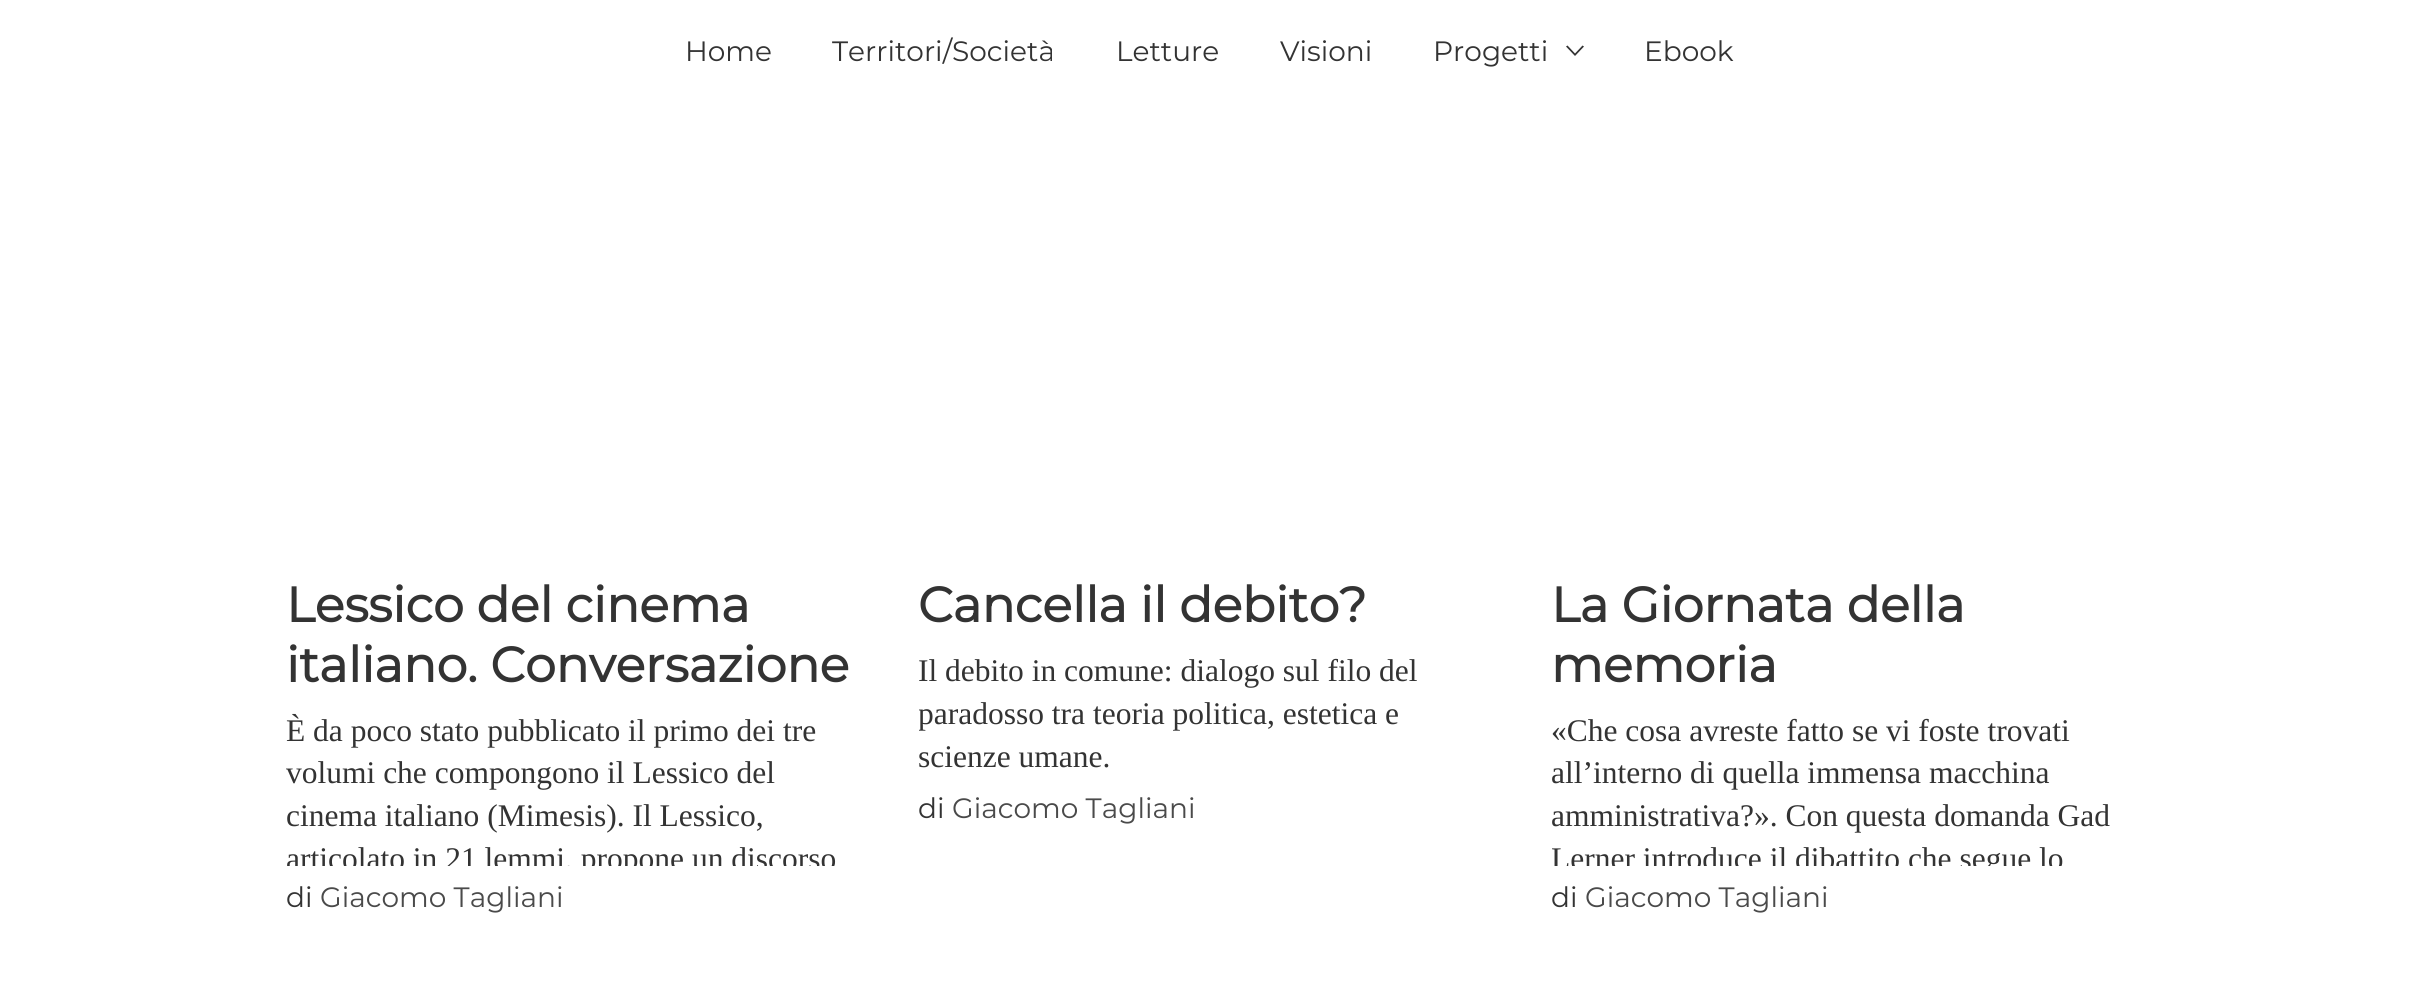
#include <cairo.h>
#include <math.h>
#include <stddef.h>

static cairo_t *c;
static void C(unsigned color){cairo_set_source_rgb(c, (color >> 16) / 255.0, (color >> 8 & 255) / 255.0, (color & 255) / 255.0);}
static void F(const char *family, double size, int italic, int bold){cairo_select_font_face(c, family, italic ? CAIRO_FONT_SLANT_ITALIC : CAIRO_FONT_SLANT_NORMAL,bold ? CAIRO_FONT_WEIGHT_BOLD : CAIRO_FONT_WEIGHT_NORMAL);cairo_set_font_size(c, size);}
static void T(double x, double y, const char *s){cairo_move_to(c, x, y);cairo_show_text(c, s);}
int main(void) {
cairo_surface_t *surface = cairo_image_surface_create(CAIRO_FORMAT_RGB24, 2418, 988);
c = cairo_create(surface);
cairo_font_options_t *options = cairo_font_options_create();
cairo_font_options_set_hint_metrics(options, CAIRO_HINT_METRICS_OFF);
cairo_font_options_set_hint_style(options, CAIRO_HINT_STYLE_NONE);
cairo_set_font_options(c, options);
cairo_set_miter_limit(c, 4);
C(0xffffff);
cairo_paint(c);
F("Montserrat Thin",28,0,0);
C(0x333333);
T(685,61,"Home");
T(832,61,"Territori/Società");
T(1116,61,"Letture");
T(1280,61,"Visioni");
T(1433,61,"Progetti");
cairo_new_path(c);
cairo_move_to(c,1582.5,45.5);
cairo_line_to(c,1584,46.5);
cairo_line_to(c,1575,56);
cairo_line_to(c,1566,46.5);
cairo_line_to(c,1567.5,45.5);
cairo_line_to(c,1575,53.5);
cairo_close_path(c);
cairo_fill(c);
T(1644,61,"Ebook");
F("Montserrat",49,0,1);
T(286,622,"Lessico del cinema");
T(286,682,"italiano. Conversazione");
F("Liberation Serif",31.5,0,0);
T(286,741,"È da poco stato pubblicato il primo dei tre");
T(286,783,"volumi che compongono il Lessico del");
T(286,826,"cinema italiano (Mimesis). Il Lessico,");
cairo_save(c);
cairo_rectangle(c,287,709,579,157);
cairo_clip(c);
T(286,869,"articolato in 21 lemmi, propone un discorso");
cairo_restore(c);
F("Montserrat Thin",28,0,0);
T(286,907,"di");
C(0x4a4a4a);
T(320,907,"Giacomo Tagliani");
F("Montserrat",49,0,1);
C(0x333333);
T(918,622,"Cancella il debito?");
F("Liberation Serif",31.5,0,0);
T(918,681,"Il debito in comune: dialogo sul filo del");
cairo_save(c);
cairo_rectangle(c,919,649,579,130);
cairo_clip(c);
T(918,724,"paradosso tra teoria politica, estetica e");
cairo_restore(c);
T(918,767,"scienze umane.");
F("Montserrat Thin",28,0,0);
T(918,818,"di");
C(0x4a4a4a);
T(952,818,"Giacomo Tagliani");
F("Montserrat",49,0,1);
C(0x333333);
T(1551,622,"La Giornata della");
T(1551,682,"memoria");
F("Liberation Serif",31.5,0,0);
T(1551,741,"«Che cosa avreste fatto se vi foste trovati");
T(1551,783,"all’interno di quella immensa macchina");
T(1551,826,"amministrativa?». Con questa domanda Gad");
cairo_save(c);
cairo_rectangle(c,1552,709,580,157);
cairo_clip(c);
T(1551,869,"Lerner introduce il dibattito che segue lo");
cairo_restore(c);
F("Montserrat Thin",28,0,0);
T(1551,907,"di");
C(0x4a4a4a);
T(1585,907,"Giacomo Tagliani");
cairo_surface_write_to_png(surface, "o.png");
cairo_font_options_destroy(options);
cairo_destroy(c);
cairo_surface_destroy(surface);
return 0;
}
